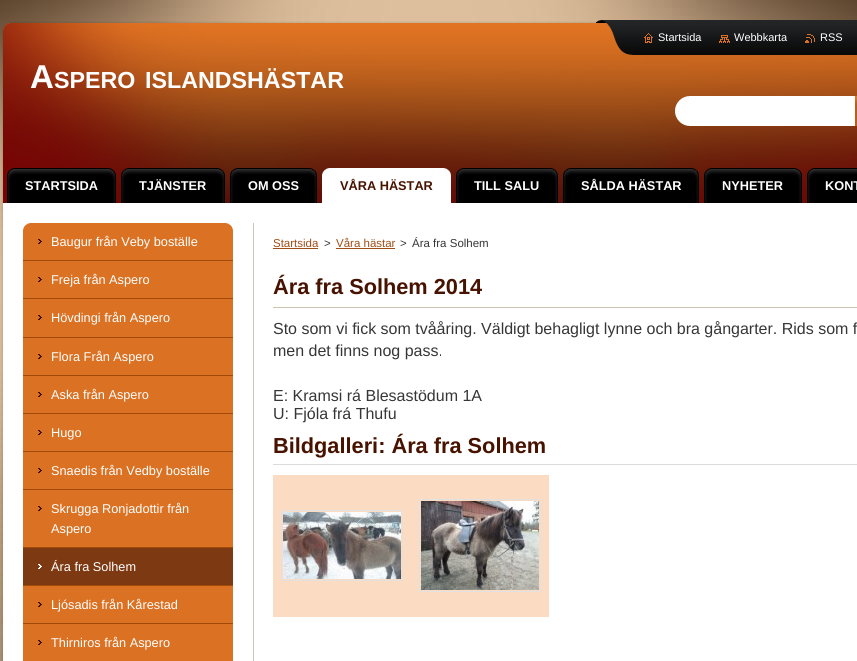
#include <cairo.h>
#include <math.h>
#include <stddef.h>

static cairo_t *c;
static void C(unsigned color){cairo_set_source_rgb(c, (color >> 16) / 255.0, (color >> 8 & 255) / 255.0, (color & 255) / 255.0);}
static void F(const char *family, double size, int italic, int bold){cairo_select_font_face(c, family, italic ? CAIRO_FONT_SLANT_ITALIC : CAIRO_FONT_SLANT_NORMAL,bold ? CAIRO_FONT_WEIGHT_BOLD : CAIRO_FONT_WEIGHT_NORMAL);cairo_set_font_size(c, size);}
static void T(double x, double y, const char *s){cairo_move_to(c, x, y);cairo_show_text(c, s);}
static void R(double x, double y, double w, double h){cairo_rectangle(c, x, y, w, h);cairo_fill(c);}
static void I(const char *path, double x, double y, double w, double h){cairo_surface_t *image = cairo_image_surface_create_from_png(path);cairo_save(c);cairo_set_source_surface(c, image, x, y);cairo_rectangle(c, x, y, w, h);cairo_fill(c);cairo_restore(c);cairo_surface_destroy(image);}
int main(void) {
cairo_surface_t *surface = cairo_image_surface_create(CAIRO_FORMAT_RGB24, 857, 661);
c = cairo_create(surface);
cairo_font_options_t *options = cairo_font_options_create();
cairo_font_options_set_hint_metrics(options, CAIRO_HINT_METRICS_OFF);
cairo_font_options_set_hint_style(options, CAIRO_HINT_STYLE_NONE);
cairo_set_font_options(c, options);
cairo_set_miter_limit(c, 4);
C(0xffffff);
cairo_paint(c);
I("1.png",0,0,857,661);
I("7.png",1,21,856,182);
I("2.png",596,20,37,35);
I("3.png",633,20,224,35);
I("4.png",644,33,9,10);
F("Liberation Sans",11,0,0);
C(0xffffff);
T(658,41,"Startsida");
I("5.png",719,35,11,8);
T(734,41,"Webbkarta");
I("6.png",805,34,10,9);
T(820,41,"RSS");
F("Liberation Sans",33,0,1);
T(30,88,"A");
F("Liberation Sans",23.25,0,1);
T(54,88,"SPERO");
T(145,88,"ISLANDSHÄSTAR");
I("8.png",675,96,180,30);
I("9.png",855,96,2,30);
I("10.png",7,168,8,35);
I("11.png",15,168,101,35);
F("Liberation Sans",12.75,0,1);
T(25,190,"STARTSIDA");
I("12.png",121,168,8,35);
I("13.png",129,168,96,35);
T(139,190,"TJÄNSTER");
I("14.png",230,168,8,35);
I("15.png",238,168,79,35);
T(248,190,"OM OSS");
I("16.png",322,168,8,35);
I("17.png",330,168,121,35);
C(0x481200);
T(340,190,"VÅRA HÄSTAR");
I("18.png",456,168,8,35);
I("19.png",464,168,94,35);
C(0xffffff);
T(474,190,"TILL SALU");
I("20.png",563,168,8,35);
I("21.png",571,168,128,35);
T(581,190,"SÅLDA HÄSTAR");
I("22.png",704,168,8,35);
I("23.png",712,168,90,35);
T(722,190,"NYHETER");
I("24.png",807,168,8,35);
I("25.png",815,168,42,35);
T(825,190,"KONT");
I("26.png",1,203,856,458);
C(0xc9c7b3);
R(253,223,1,438);
C(0xdb7122);
R(23,231,210,29);
I("27.png",23,223,210,8);
C(0xa44a08);
R(23,260,210,1);
I("28.png",38,239,4,5);
F("Liberation Sans",12.75,0,0);
C(0xffffff);
T(51,246,"Baugur från Veby boställe");
C(0xdb7122);
R(23,261,210,37);
C(0xa44a08);
R(23,298,210,1);
I("28.png",38,277,4,5);
C(0xffffff);
T(51,284,"Freja från Aspero");
C(0xdb7122);
R(23,299,210,38);
C(0xa44a08);
R(23,337,210,1);
I("28.png",38,315,4,5);
C(0xffffff);
T(51,322,"Hövdingi från Aspero");
C(0xdb7122);
R(23,338,210,37);
C(0xa44a08);
R(23,375,210,1);
I("28.png",38,354,4,5);
C(0xffffff);
T(51,361,"Flora Från Aspero");
C(0xdb7122);
R(23,376,210,37);
C(0xa44a08);
R(23,413,210,1);
I("28.png",38,392,4,5);
C(0xffffff);
T(51,399,"Aska från Aspero");
C(0xdb7122);
R(23,414,210,37);
C(0xa44a08);
R(23,451,210,1);
I("28.png",38,430,4,5);
C(0xffffff);
T(51,437,"Hugo");
C(0xdb7122);
R(23,452,210,37);
C(0xa44a08);
R(23,489,210,1);
I("28.png",38,468,4,5);
C(0xffffff);
T(51,475,"Snaedis från Vedby boställe");
C(0xdb7122);
R(23,490,210,57);
C(0xa44a08);
R(23,547,210,1);
I("28.png",38,506,4,5);
C(0xffffff);
T(51,513,"Skrugga Ronjadottir från");
T(51,533,"Aspero");
C(0x7d3912);
R(23,548,210,37);
C(0xa44a08);
R(23,585,210,1);
I("29.png",38,564,4,5);
C(0xffffff);
T(51,571,"Ára fra Solhem");
C(0xdb7122);
R(23,586,210,37);
C(0xa44a08);
R(23,623,210,1);
I("28.png",38,602,4,5);
C(0xffffff);
T(51,609,"Ljósadis från Kårestad");
C(0xdb7122);
R(23,624,210,37);
I("28.png",38,640,4,5);
C(0xffffff);
T(51,647,"Thirniros från Aspero");
F("Liberation Sans",11.5,0,0);
C(0x9f4e18);
T(273,247,"Startsida");
R(273,248,45,1);
C(0x363636);
T(324,247,">");
C(0x9f4e18);
T(336,247,"Våra hästar");
R(336,248,59,1);
C(0x363636);
T(400,247,">");
T(412,247,"Ára fra Solhem");
C(0xc9c7b3);
R(273,307,584,1);
F("Liberation Sans",21.75,0,1);
C(0x481200);
T(273,294,"Ára fra Solhem 2014");
F("Liberation Sans",16,0,0);
C(0x363636);
T(273,334,"Sto som vi fick som tvååring. Väldigt behagligt lynne och bra gångarter. Rids som f");
T(273,356,"men det finns nog pass.");
T(273,401,"E: Kramsi rá Blesastödum 1A");
T(273,419,"U: Fjóla frá Thufu");
C(0xdbdbdb);
R(273,464,584,1);
F("Liberation Sans",21.75,0,1);
C(0x481200);
T(273,453,"Bildgalleri: Ára fra Solhem");
C(0xfcdbc3);
R(273,475,276,142);
cairo_rectangle(c,281.5,510.5,121,70);
C(0xe1e1e1);
cairo_set_line_width(c,1);
cairo_stroke(c);
I("30.png",283,512,118,67);
cairo_rectangle(c,419.5,499.5,121,92);
cairo_stroke(c);
I("31.png",421,501,118,89);
cairo_surface_write_to_png(surface, "o.png");
cairo_font_options_destroy(options);
cairo_destroy(c);
cairo_surface_destroy(surface);
return 0;
}
